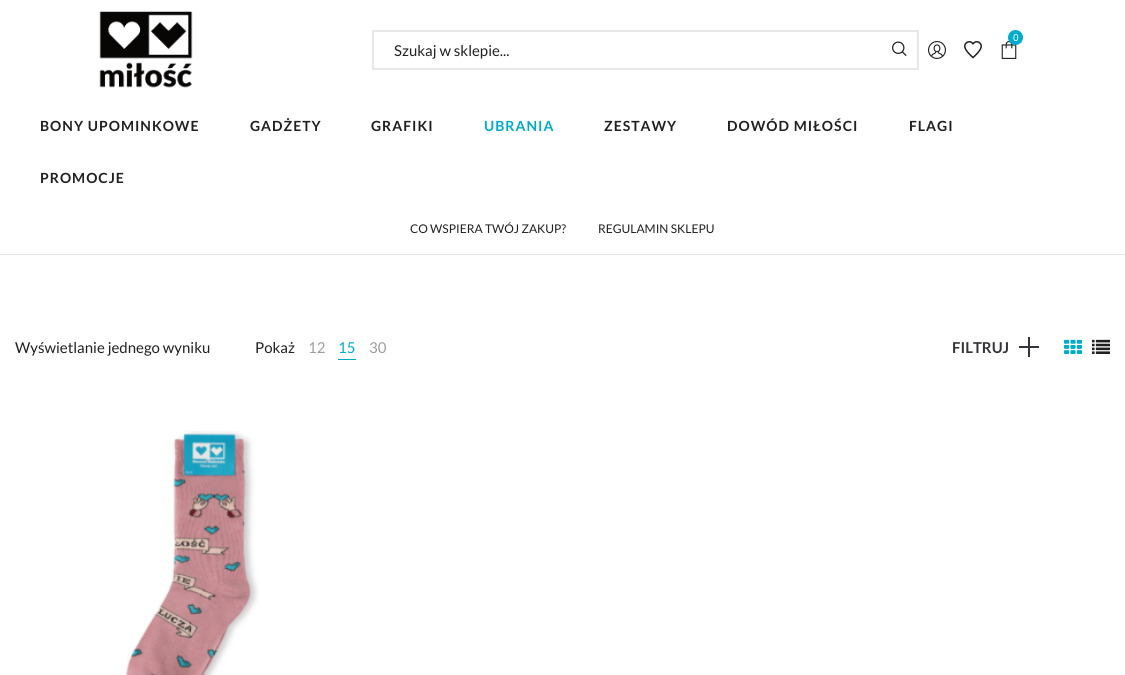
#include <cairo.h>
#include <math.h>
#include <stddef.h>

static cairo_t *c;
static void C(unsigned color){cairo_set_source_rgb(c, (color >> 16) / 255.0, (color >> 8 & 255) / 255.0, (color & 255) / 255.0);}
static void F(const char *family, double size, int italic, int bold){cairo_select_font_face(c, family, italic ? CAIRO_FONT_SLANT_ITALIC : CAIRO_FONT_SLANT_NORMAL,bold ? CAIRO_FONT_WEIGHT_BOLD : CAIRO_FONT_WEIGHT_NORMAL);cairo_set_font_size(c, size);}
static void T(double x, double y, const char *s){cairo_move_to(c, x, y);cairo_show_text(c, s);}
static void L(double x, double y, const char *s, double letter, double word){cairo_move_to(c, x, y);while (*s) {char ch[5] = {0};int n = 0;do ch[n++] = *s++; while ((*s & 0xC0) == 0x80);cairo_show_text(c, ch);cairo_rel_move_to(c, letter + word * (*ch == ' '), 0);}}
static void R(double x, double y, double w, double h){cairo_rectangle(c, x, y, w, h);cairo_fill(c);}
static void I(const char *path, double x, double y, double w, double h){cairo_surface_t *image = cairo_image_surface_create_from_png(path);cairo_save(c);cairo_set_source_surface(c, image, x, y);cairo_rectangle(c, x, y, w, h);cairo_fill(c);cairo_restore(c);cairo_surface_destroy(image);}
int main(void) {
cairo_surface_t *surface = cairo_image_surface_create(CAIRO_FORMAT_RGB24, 1125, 675);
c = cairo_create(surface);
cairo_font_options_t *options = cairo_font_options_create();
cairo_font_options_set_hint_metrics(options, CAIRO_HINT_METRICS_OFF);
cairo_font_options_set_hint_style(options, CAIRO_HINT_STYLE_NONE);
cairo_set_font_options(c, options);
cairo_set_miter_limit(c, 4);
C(0xffffff);
cairo_paint(c);
I("1.png",99,11,94,77);
I("2.png",1001,41,16,18);
C(0x00acc9);
cairo_arc(c,1015.5,37.5,7.5,0,2 * M_PI);
cairo_fill(c);
F("Liberation Sans",10,0,0);
C(0xffffff);
T(1013,41,"0");
I("3.png",928,41,18,18);
I("4.png",964,41,18,18);
cairo_rectangle(c,373,31,545,38);
C(0xe8e8e8);
cairo_stroke(c);
F("Lato",15,0,0);
C(0x202020);
T(394,56,"Szukaj w sklepie...");
I("5.png",892,41,15,15);
F("Lato",14,0,1);
L(40,131,"BONY UPOMINKOWE",1,0);
L(250,131,"GADŻETY",1,0);
L(371,131,"GRAFIKI",1,0);
C(0x00acc9);
L(484,131,"UBRANIA",1,0);
C(0x202020);
L(604,131,"ZESTAWY",1,0);
L(727,131,"DOWÓD MIŁOŚCI",1,0);
L(909,131,"FLAGI",1,0);
L(40,183,"PROMOCJE",1,0);
F("Lato",12,0,0);
T(410,233,"CO WSPIERA TWÓJ ZAKUP?");
T(598,233,"REGULAMIN SKLEPU");
C(0xe8e8e8);
R(0,254,1125,1);
F("Lato",15,0,0);
C(0x202020);
T(15,353,"Wyświetlanie jednego wyniku");
T(255,353,"Pokaż");
C(0x9d9d9d);
T(308,353,"12");
C(0x00acc9);
R(338,359,18,1);
T(338,353,"15");
C(0x9d9d9d);
T(369,353,"30");
F("Lato",15,0,1);
C(0x343538);
T(952,353,"FILTRUJ");
R(1019,346,20,2);
R(1028,337,2,20);
I("6.png",1064,339,18,15);
I("7.png",1092,339,18,15);
I("8.png",125,431,134,244);
cairo_surface_write_to_png(surface, "o.png");
cairo_font_options_destroy(options);
cairo_destroy(c);
cairo_surface_destroy(surface);
return 0;
}
